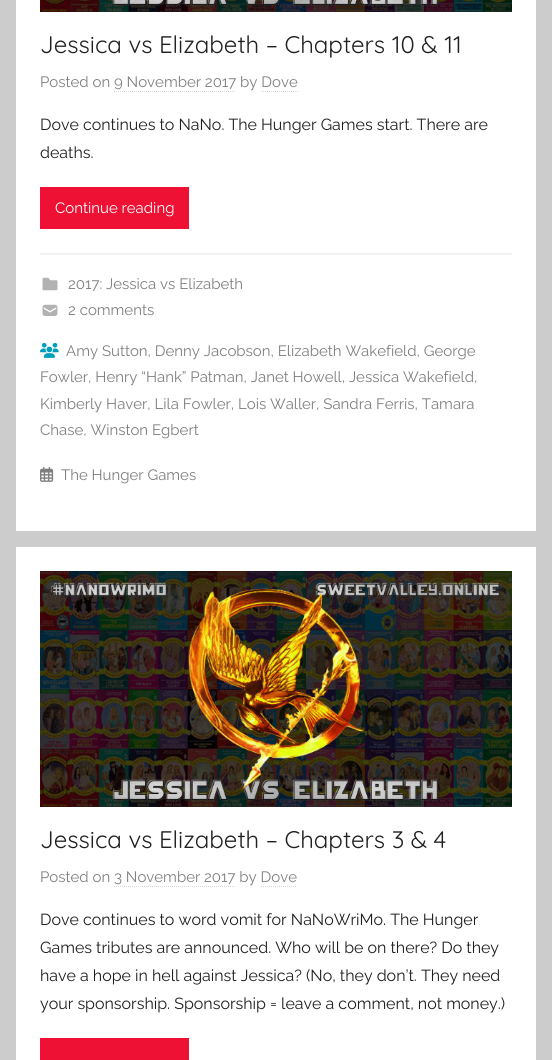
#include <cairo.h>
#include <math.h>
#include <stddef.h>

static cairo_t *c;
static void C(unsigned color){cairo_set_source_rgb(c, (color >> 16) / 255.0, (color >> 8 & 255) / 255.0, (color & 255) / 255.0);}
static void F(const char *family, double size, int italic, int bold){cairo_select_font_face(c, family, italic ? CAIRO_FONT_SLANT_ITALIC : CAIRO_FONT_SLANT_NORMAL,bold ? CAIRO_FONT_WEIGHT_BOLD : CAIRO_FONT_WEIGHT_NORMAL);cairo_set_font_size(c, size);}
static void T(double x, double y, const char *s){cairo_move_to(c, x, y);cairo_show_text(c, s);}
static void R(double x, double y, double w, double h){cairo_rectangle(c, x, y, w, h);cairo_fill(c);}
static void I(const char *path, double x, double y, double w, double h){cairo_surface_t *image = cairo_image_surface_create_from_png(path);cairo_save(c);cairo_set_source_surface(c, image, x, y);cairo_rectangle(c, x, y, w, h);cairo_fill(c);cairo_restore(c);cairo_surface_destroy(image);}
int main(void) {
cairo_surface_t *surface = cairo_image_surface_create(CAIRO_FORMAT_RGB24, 552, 1060);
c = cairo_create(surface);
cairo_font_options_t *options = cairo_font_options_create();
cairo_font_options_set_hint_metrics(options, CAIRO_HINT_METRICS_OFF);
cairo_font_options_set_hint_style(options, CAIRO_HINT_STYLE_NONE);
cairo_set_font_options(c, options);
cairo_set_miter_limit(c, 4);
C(0xcccccc);
cairo_paint(c);
C(0xffffff);
R(16,0,520,531);
I("1.png",40,0,472,12);
F("Quicksand",24,0,0);
C(0x202020);
T(40,53,"Jessica vs Elizabeth – Chapters 10 & 11");
F("Raleway",15,0,0);
C(0x808080);
T(40,87,"Posted on 9 November 2017 by Dove");
cairo_new_path(c);
cairo_move_to(c,114,91.5);
cairo_line_to(c,236,91.5);
C(0xd9d9d9);
cairo_set_line_width(c,1);
cairo_set_dash(c,(double[]){1,1},2,0);
cairo_stroke(c);
cairo_new_path(c);
cairo_move_to(c,261,91.5);
cairo_line_to(c,298,91.5);
cairo_stroke(c);
F("Raleway",16,0,0);
C(0x202020);
T(40,130,"Dove continues to NaNo. The Hunger Games start. There are");
T(40,158,"deaths.");
C(0xee1133);
R(40,187,149,42);
F("Raleway",15,0,0);
C(0xffffff);
T(55,213,"Continue reading");
C(0xf2f2f2);
R(40,253,472,2);
I("2.png",42,277,16,14);
C(0x808080);
T(68,289,"2017: Jessica vs Elizabeth");
I("3.png",42,304,16,12);
T(68,315,"2 comments");
I("4.png",40,342,19,16);
T(66,356,"Amy Sutton, Denny Jacobson, Elizabeth Wakefield, George");
T(40,382,"Fowler, Henry “Hank” Patman, Janet Howell, Jessica Wakefield,");
T(40,409,"Kimberly Haver, Lila Fowler, Lois Waller, Sandra Ferris, Tamara");
T(40,435,"Chase, Winston Egbert");
I("5.png",40,467,14,15);
T(61,480,"The Hunger Games");
C(0xffffff);
R(16,547,520,513);
I("6.png",40,571,472,236);
F("Quicksand",24,0,0);
C(0x202020);
T(40,848,"Jessica vs Elizabeth – Chapters 3 & 4");
F("Raleway",15,0,0);
C(0x808080);
T(40,882,"Posted on 3 November 2017 by Dove");
cairo_new_path(c);
cairo_move_to(c,114,886.5);
cairo_line_to(c,236,886.5);
C(0xd9d9d9);
cairo_stroke(c);
cairo_new_path(c);
cairo_move_to(c,261,886.5);
cairo_line_to(c,297,886.5);
cairo_stroke(c);
F("Raleway",16,0,0);
C(0x202020);
T(40,925,"Dove continues to word vomit for NaNoWriMo. The Hunger");
T(40,953,"Games tributes are announced. Who will be on there? Do they");
T(40,981,"have a hope in hell against Jessica? (No, they don’t. They need");
T(40,1009,"your sponsorship. Sponsorship = leave a comment, not money.)");
C(0xee1133);
R(40,1038,149,22);
cairo_surface_write_to_png(surface, "o.png");
cairo_font_options_destroy(options);
cairo_destroy(c);
cairo_surface_destroy(surface);
return 0;
}
